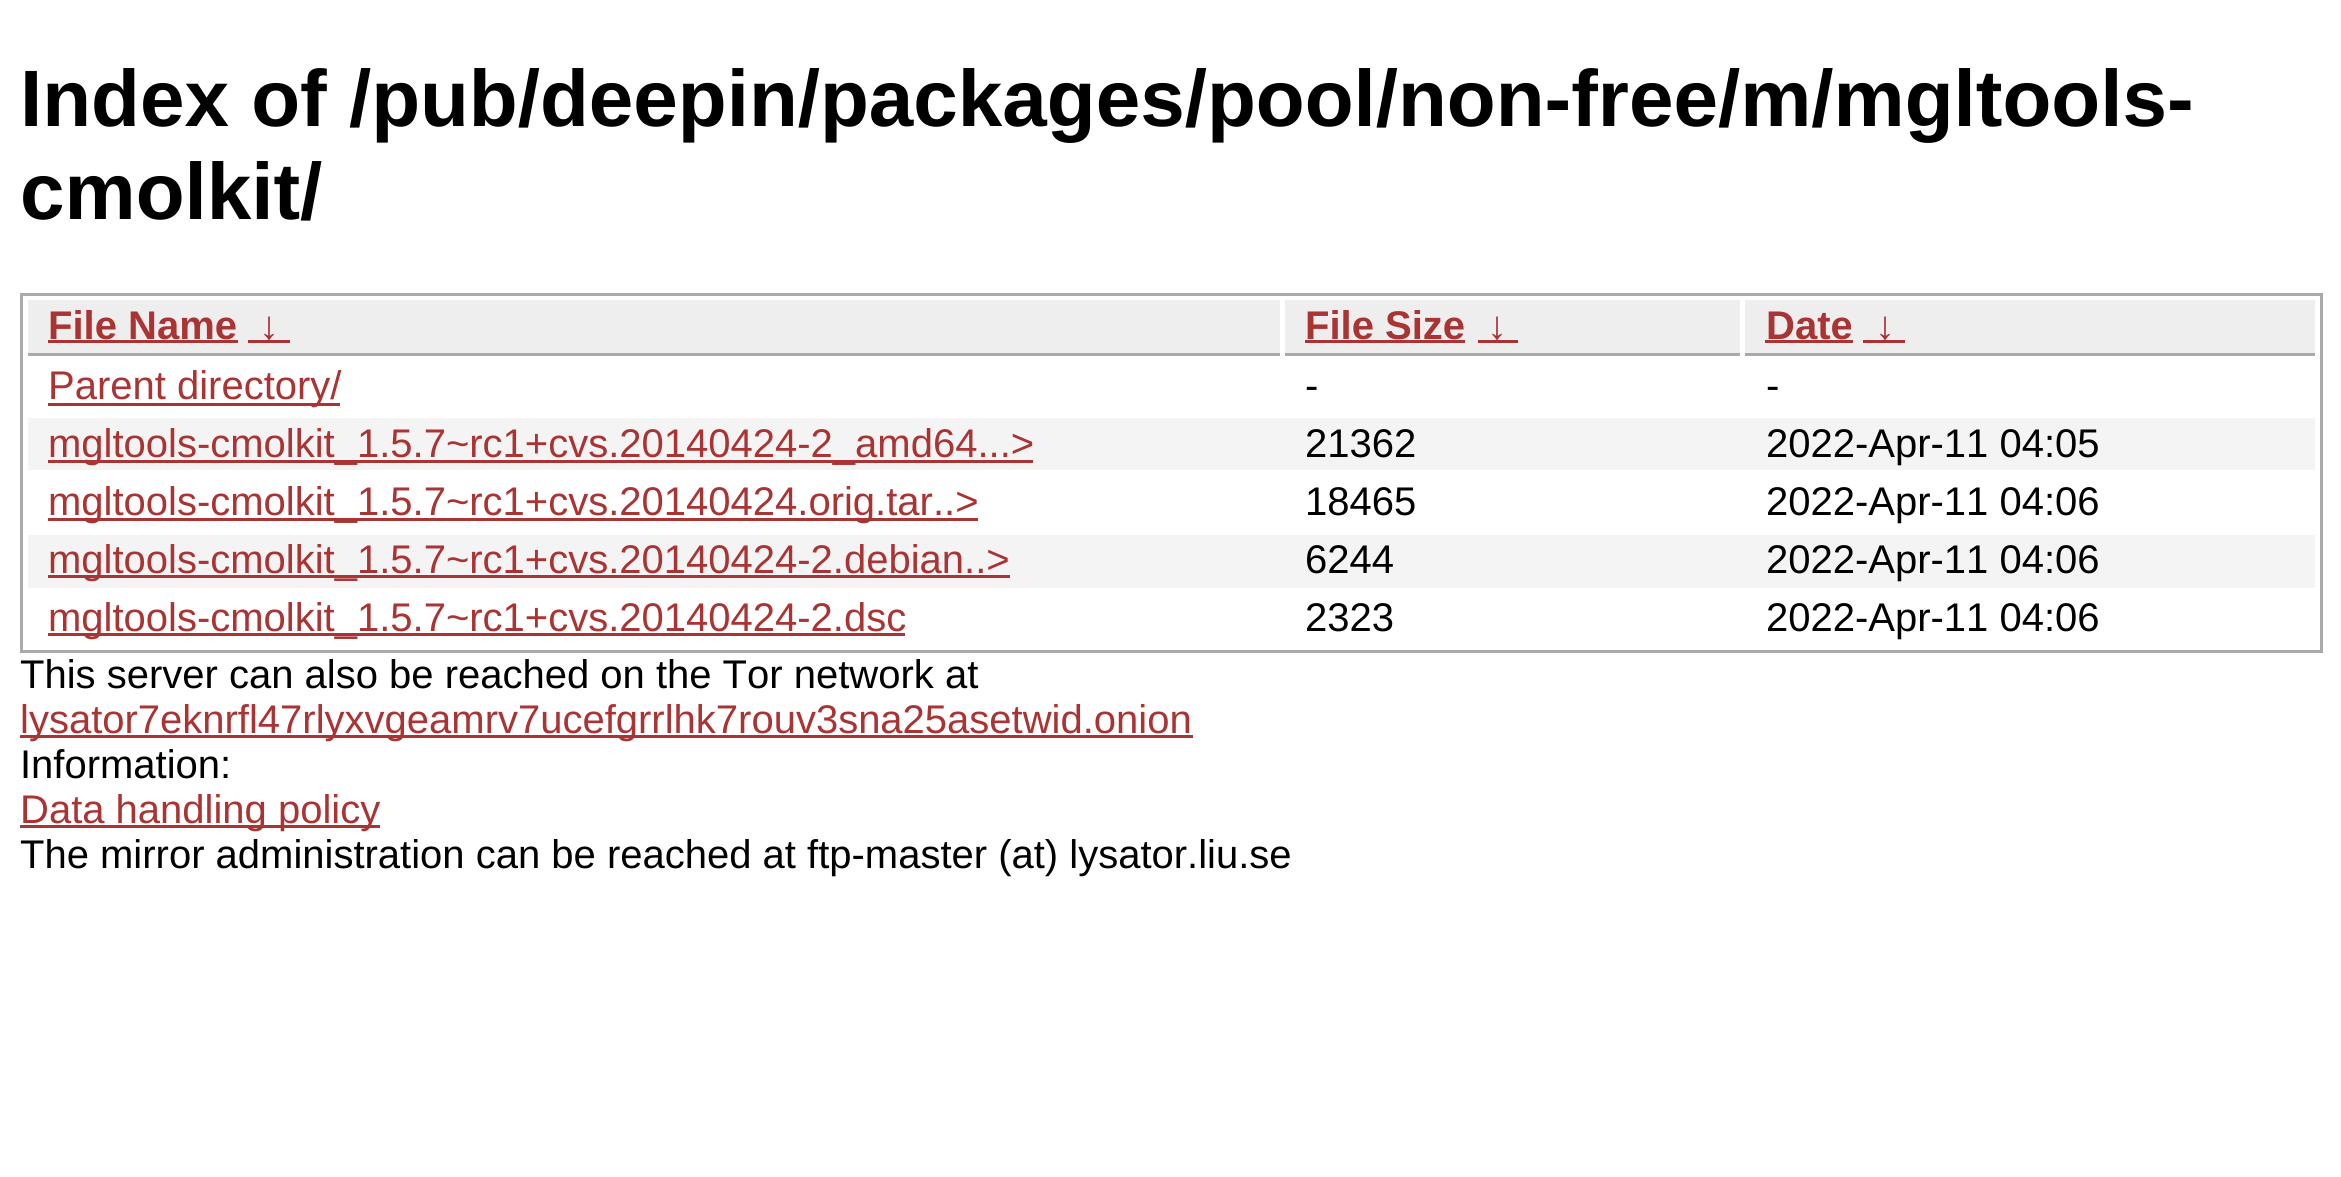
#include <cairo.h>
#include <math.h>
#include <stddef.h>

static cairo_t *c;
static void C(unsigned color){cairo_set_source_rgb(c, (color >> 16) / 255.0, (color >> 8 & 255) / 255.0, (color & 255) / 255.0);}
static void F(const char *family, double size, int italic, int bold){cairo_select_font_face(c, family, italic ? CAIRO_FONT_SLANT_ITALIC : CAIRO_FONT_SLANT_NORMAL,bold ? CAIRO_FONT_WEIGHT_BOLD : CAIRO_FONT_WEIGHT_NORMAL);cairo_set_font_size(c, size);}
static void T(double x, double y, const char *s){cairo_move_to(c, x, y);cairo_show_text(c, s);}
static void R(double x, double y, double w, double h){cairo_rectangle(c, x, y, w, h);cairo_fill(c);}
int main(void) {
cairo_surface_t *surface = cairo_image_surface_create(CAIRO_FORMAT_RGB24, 2341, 1177);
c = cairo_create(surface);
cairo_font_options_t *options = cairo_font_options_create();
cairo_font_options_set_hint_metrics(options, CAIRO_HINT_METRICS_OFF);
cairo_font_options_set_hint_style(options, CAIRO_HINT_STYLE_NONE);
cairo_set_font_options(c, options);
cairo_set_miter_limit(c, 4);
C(0xffffff);
cairo_paint(c);
F("Liberation Sans",80,0,1);
C(0x000000);
T(20,126,"Index of /pub/deepin/packages/pool/non-free/m/mgltools-");
T(20,219,"cmolkit/");
cairo_rectangle(c,21.5,294.5,2300,357);
C(0xaaaaaa);
cairo_set_line_width(c,3);
cairo_stroke(c);
C(0xeeeeee);
R(28,300,1252,53);
C(0xaaaaaa);
R(28,353,1252,3);
F("Liberation Sans",40,0,1);
C(0xaa3333);
T(48,339,"File Name");
R(48,340,190,3);
R(248,340,42,3);
T(259,339,"↓");
C(0xeeeeee);
R(1285,300,455,53);
C(0xaaaaaa);
R(1285,353,455,3);
C(0xaa3333);
T(1305,339,"File Size");
R(1305,340,160,3);
R(1478,340,40,3);
T(1487,339,"↓");
C(0xeeeeee);
R(1745,300,570,53);
C(0xaaaaaa);
R(1745,353,570,3);
C(0xaa3333);
T(1766,339,"Date");
R(1765,340,88,3);
R(1863,340,42,3);
T(1875,339,"↓");
R(48,403,292,3);
F("Liberation Sans",40,0,0);
T(48,399,"Parent directory/");
C(0x000000);
T(1305,399,"-");
T(1766,399,"-");
C(0xf4f4f4);
R(28,418,2287,52);
C(0xaa3333);
R(48,460,985,3);
T(48,457,"mgltools-cmolkit_1.5.7~rc1+cvs.20140424-2_amd64...>");
C(0x000000);
T(1305,457,"21362");
T(1766,457,"2022-Apr-11 04:05");
C(0xaa3333);
R(48,518,930,3);
T(48,515,"mgltools-cmolkit_1.5.7~rc1+cvs.20140424.orig.tar..>");
C(0x000000);
T(1305,515,"18465");
T(1766,515,"2022-Apr-11 04:06");
C(0xf4f4f4);
R(28,535,2287,53);
C(0xaa3333);
R(48,575,962,3);
T(48,573,"mgltools-cmolkit_1.5.7~rc1+cvs.20140424-2.debian..>");
C(0x000000);
T(1305,573,"6244");
T(1766,573,"2022-Apr-11 04:06");
C(0xaa3333);
R(48,633,857,3);
T(48,631,"mgltools-cmolkit_1.5.7~rc1+cvs.20140424-2.dsc");
C(0x000000);
T(1305,631,"2323");
T(1766,631,"2022-Apr-11 04:06");
T(20,688,"This server can also be reached on the Tor network at");
C(0xaa3333);
R(20,735,1173,3);
T(20,733,"lysator7eknrfl47rlyxvgeamrv7ucefgrrlhk7rouv3sna25asetwid.onion");
C(0x000000);
T(20,778,"Information:");
C(0xaa3333);
R(20,825,360,3);
T(20,823,"Data handling policy");
C(0x000000);
T(20,868,"The mirror administration can be reached at ftp-master (at) lysator.liu.se");
cairo_surface_write_to_png(surface, "o.png");
cairo_font_options_destroy(options);
cairo_destroy(c);
cairo_surface_destroy(surface);
return 0;
}
